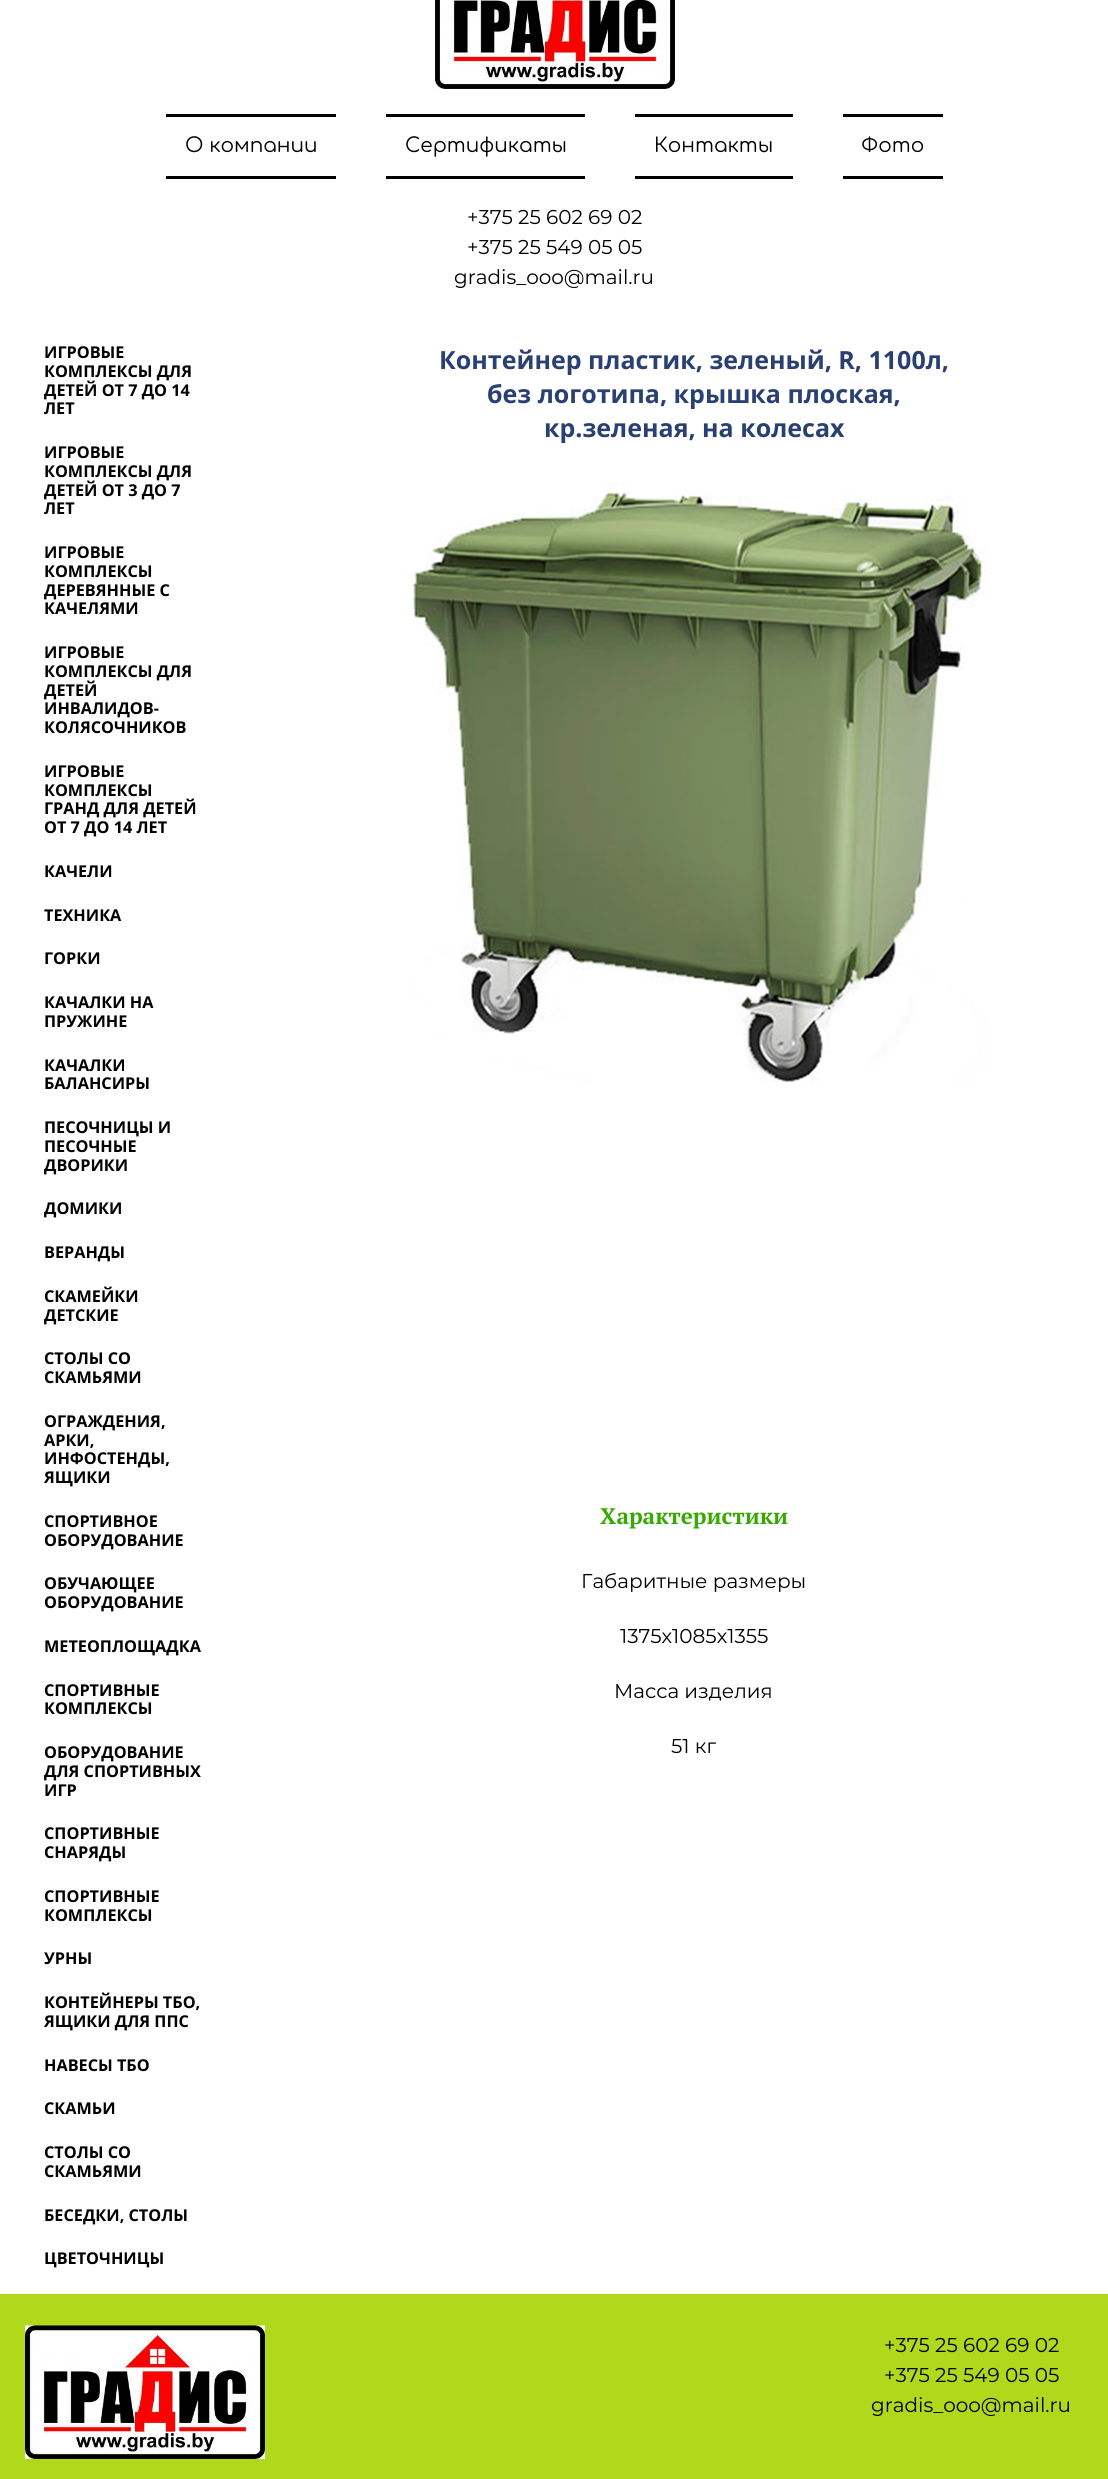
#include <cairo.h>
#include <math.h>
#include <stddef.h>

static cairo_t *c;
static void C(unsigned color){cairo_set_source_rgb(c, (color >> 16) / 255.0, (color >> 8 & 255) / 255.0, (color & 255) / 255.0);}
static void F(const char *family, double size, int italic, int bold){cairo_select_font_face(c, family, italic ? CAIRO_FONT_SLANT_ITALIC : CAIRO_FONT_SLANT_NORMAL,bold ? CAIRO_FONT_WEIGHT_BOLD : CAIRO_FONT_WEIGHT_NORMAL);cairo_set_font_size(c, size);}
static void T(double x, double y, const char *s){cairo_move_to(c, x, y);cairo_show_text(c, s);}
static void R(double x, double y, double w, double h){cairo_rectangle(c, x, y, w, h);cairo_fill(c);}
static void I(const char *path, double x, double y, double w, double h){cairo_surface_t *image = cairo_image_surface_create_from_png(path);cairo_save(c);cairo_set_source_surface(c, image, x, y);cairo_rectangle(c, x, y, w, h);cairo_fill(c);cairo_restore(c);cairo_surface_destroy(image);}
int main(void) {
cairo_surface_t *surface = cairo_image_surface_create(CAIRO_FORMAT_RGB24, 1108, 2479);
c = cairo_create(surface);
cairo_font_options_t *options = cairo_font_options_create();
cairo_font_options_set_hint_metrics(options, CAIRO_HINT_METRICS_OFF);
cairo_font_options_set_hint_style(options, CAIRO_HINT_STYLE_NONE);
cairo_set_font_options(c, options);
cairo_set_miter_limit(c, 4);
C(0xffffff);
cairo_paint(c);
I("1.png",435,0,240,89);
C(0x000000);
R(166,114,170,3);
R(166,176,170,3);
F("Comfortaa",20,0,0);
T(185,152,"О компании");
R(386,114,199,3);
R(386,176,199,3);
T(405,152,"Сертификаты");
R(635,114,158,3);
R(635,176,158,3);
T(654,152,"Контакты");
R(843,114,100,3);
R(843,176,100,3);
T(861,152,"Фото");
F("Montserrat",20,0,0);
T(467,224,"+375 25 602 69 02");
T(467,254,"+375 25 549 05 05");
T(454,284,"gradis_ooo@mail.ru");
F("Open Sans",16.25,0,1);
T(44,358,"ИГРОВЫЕ");
T(44,377,"КОМПЛЕКСЫ ДЛЯ");
T(44,396,"ДЕТЕЙ ОТ 7 ДО 14");
T(44,414,"ЛЕТ");
T(44,458,"ИГРОВЫЕ");
T(44,477,"КОМПЛЕКСЫ ДЛЯ");
T(44,496,"ДЕТЕЙ ОТ 3 ДО 7");
T(44,514,"ЛЕТ");
T(44,558,"ИГРОВЫЕ");
T(44,577,"КОМПЛЕКСЫ");
T(44,596,"ДЕРЕВЯННЫЕ С");
T(44,614,"КАЧЕЛЯМИ");
T(44,658,"ИГРОВЫЕ");
T(44,677,"КОМПЛЕКСЫ ДЛЯ");
T(44,696,"ДЕТЕЙ");
T(44,714,"ИНВАЛИДОВ-");
T(44,733,"КОЛЯСОЧНИКОВ");
T(44,777,"ИГРОВЫЕ");
T(44,796,"КОМПЛЕКСЫ");
T(44,814,"ГРАНД ДЛЯ ДЕТЕЙ");
T(44,833,"ОТ 7 ДО 14 ЛЕТ");
T(44,877,"КАЧЕЛИ");
T(44,921,"ТЕХНИКА");
T(44,964,"ГОРКИ");
T(44,1008,"КАЧАЛКИ НА");
T(44,1027,"ПРУЖИНЕ");
T(44,1071,"КАЧАЛКИ");
T(44,1089,"БАЛАНСИРЫ");
T(44,1133,"ПЕСОЧНИЦЫ И");
T(44,1152,"ПЕСОЧНЫЕ");
T(44,1171,"ДВОРИКИ");
T(44,1214,"ДОМИКИ");
T(44,1258,"ВЕРАНДЫ");
T(44,1302,"СКАМЕЙКИ");
T(44,1321,"ДЕТСКИЕ");
T(44,1364,"СТОЛЫ СО");
T(44,1383,"СКАМЬЯМИ");
T(44,1427,"ОГРАЖДЕНИЯ,");
T(44,1446,"АРКИ,");
T(44,1464,"ИНФОСТЕНДЫ,");
T(44,1483,"ЯЩИКИ");
T(44,1527,"СПОРТИВНОЕ");
T(44,1546,"ОБОРУДОВАНИЕ");
T(44,1589,"ОБУЧАЮЩЕЕ");
T(44,1608,"ОБОРУДОВАНИЕ");
T(44,1652,"МЕТЕОПЛОЩАДКА");
T(44,1696,"СПОРТИВНЫЕ");
T(44,1714,"КОМПЛЕКСЫ");
T(44,1758,"ОБОРУДОВАНИЕ");
T(44,1777,"ДЛЯ СПОРТИВНЫХ");
T(44,1796,"ИГР");
T(44,1839,"СПОРТИВНЫЕ");
T(44,1858,"СНАРЯДЫ");
T(44,1902,"СПОРТИВНЫЕ");
T(44,1921,"КОМПЛЕКСЫ");
T(44,1964,"УРНЫ");
T(44,2008,"КОНТЕЙНЕРЫ ТБО,");
T(44,2027,"ЯЩИКИ ДЛЯ ППС");
T(44,2071,"НАВЕСЫ ТБО");
T(44,2114,"СКАМЬИ");
T(44,2158,"СТОЛЫ СО");
T(44,2177,"СКАМЬЯМИ");
T(44,2221,"БЕСЕДКИ, СТОЛЫ");
T(44,2264,"ЦВЕТОЧНИЦЫ");
F("Open Sans",25,0,1);
C(0x2a4072);
T(439,369,"Контейнер пластик, зеленый, R, 1100л,");
T(487,403,"без логотипа, крышка плоская,");
T(544,437,"кр.зеленая, на колесах");
I("2.png",413,482,574,601);
F("PT Serif",22.5,0,1);
C(0x36a900);
T(600,1524,"Характеристики");
F("Montserrat",20,0,0);
C(0x000000);
T(581,1588,"Габаритные размеры");
T(620,1643,"1375х1085х1355");
T(614,1698,"Масса изделия");
T(671,1753,"51 кг");
C(0xb0d91c);
R(0,2294,1108,185);
I("3.png",25,2325,240,134);
C(0x000000);
T(884,2352,"+375 25 602 69 02");
T(884,2382,"+375 25 549 05 05");
T(871,2412,"gradis_ooo@mail.ru");
cairo_surface_write_to_png(surface, "o.png");
cairo_font_options_destroy(options);
cairo_destroy(c);
cairo_surface_destroy(surface);
return 0;
}
